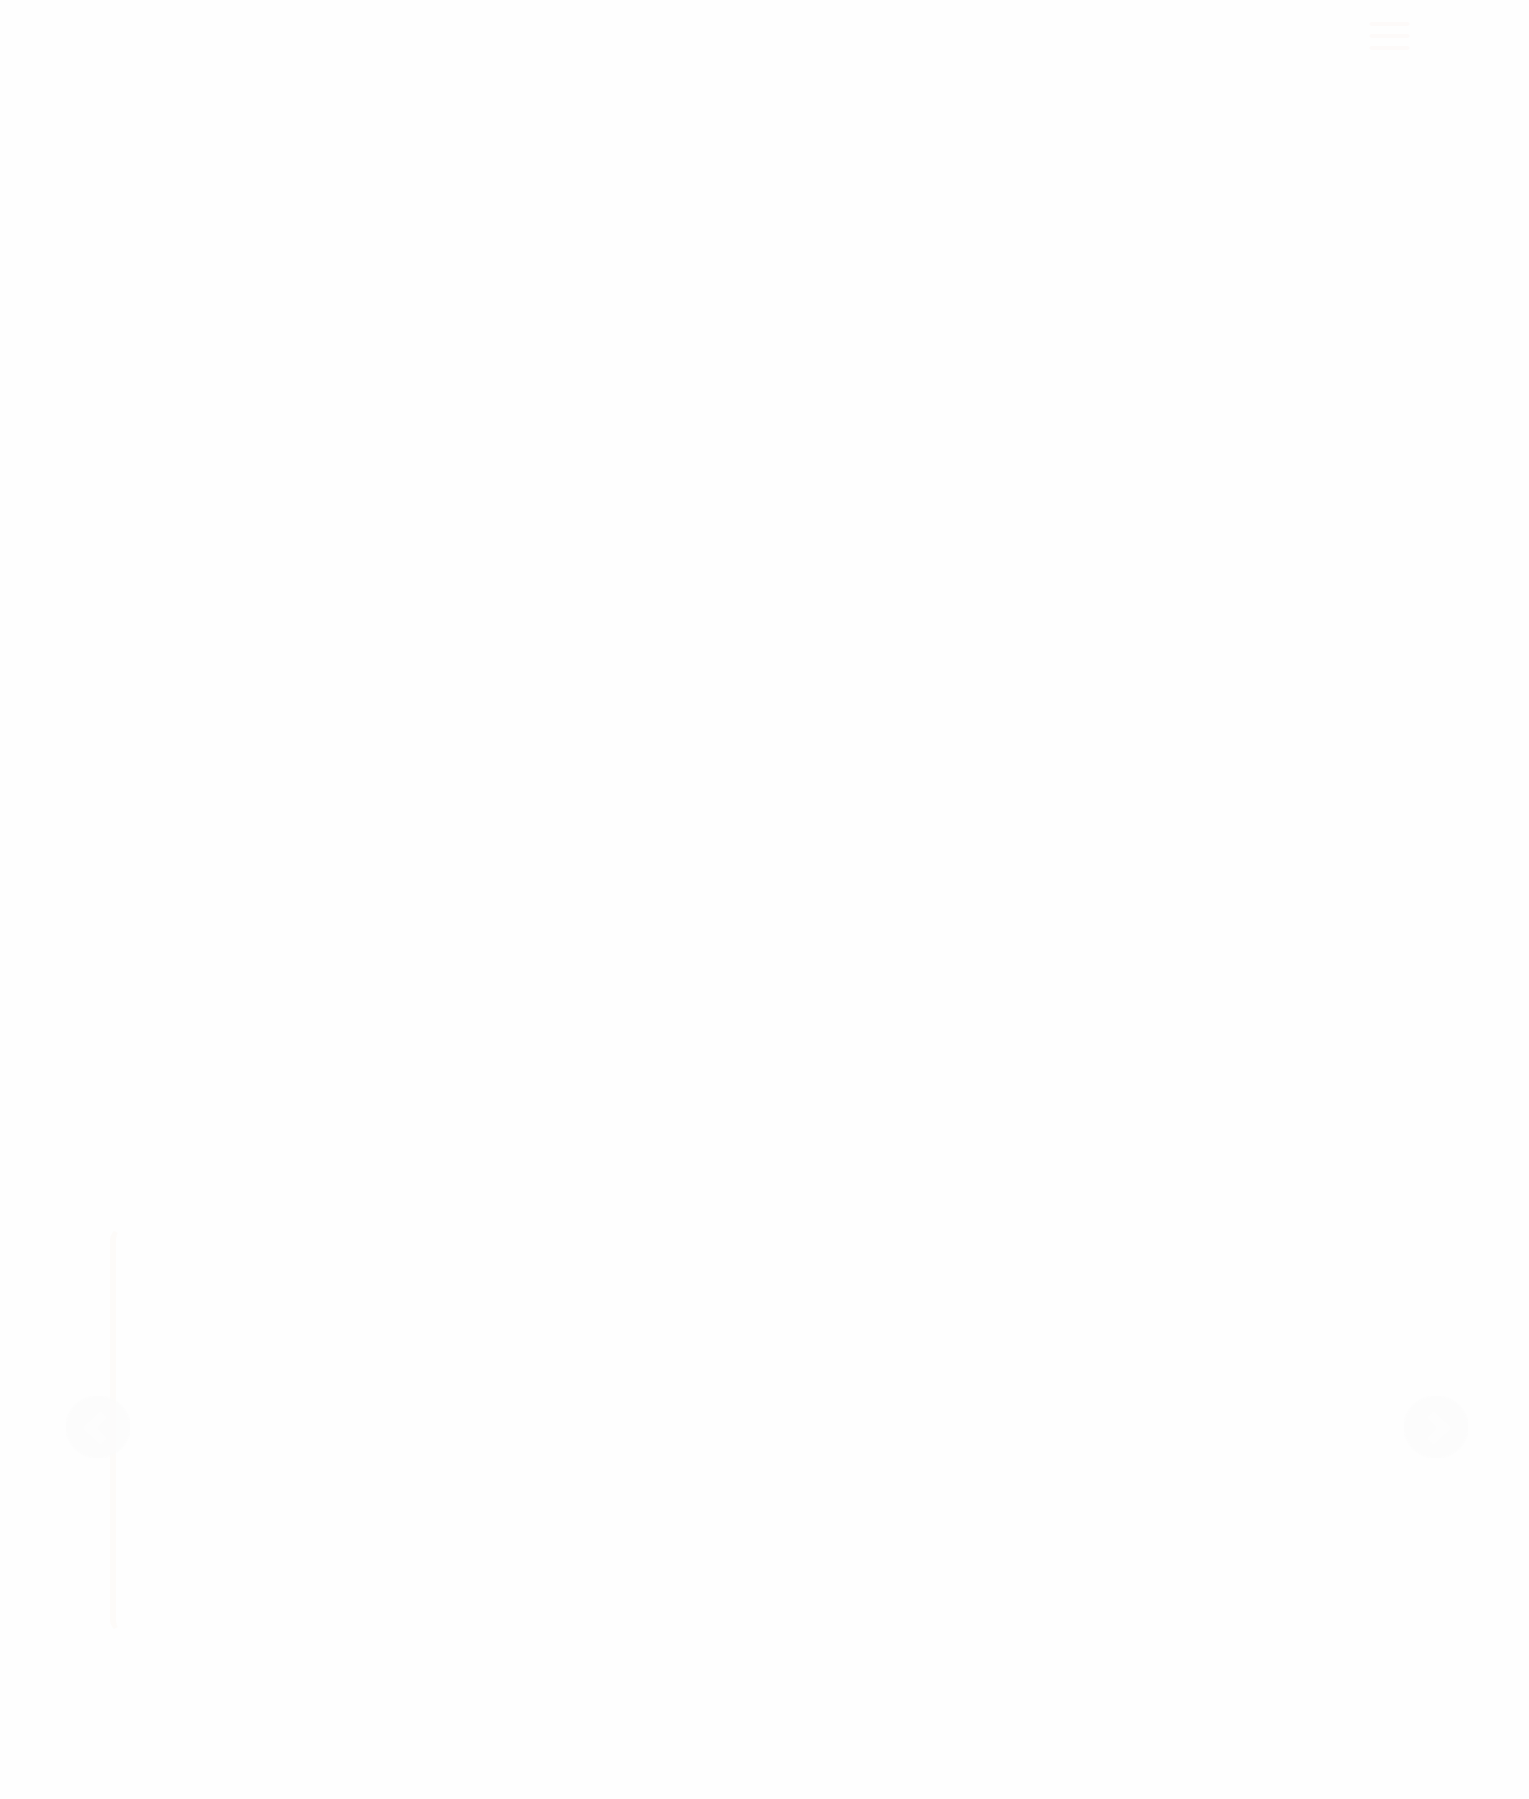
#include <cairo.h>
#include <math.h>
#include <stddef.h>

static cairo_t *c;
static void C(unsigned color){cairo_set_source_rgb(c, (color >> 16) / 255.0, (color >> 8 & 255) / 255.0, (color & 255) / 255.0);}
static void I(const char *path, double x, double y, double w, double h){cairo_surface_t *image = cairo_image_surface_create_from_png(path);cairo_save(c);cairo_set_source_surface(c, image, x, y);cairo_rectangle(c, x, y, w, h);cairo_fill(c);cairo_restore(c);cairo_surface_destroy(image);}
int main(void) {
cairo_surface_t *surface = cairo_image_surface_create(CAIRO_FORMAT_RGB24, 1529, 1799);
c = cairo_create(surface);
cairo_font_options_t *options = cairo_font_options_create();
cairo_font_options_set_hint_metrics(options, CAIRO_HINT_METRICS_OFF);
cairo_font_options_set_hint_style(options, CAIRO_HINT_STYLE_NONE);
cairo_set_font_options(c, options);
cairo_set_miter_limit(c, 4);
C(0xfefefe);
cairo_paint(c);
I("1.png",1369,21,41,29);
C(0xfdfbf9);
cairo_new_path(c);
cairo_move_to(c,110,1240);
cairo_line_to(c,110,1620);
cairo_curve_to(c,110,1624,112,1627,114,1629);
cairo_line_to(c,118,1627);
cairo_curve_to(c,117,1626,116,1623,116,1620);
cairo_line_to(c,116,1240);
cairo_curve_to(c,116,1237,117,1234,118,1233);
cairo_line_to(c,114,1231);
cairo_curve_to(c,112,1233,110,1236,110,1240);
cairo_close_path(c);
cairo_fill(c);
I("2.png",66,1396,64,62);
I("3.png",1404,1396,64,62);
cairo_surface_write_to_png(surface, "o.png");
cairo_font_options_destroy(options);
cairo_destroy(c);
cairo_surface_destroy(surface);
return 0;
}
